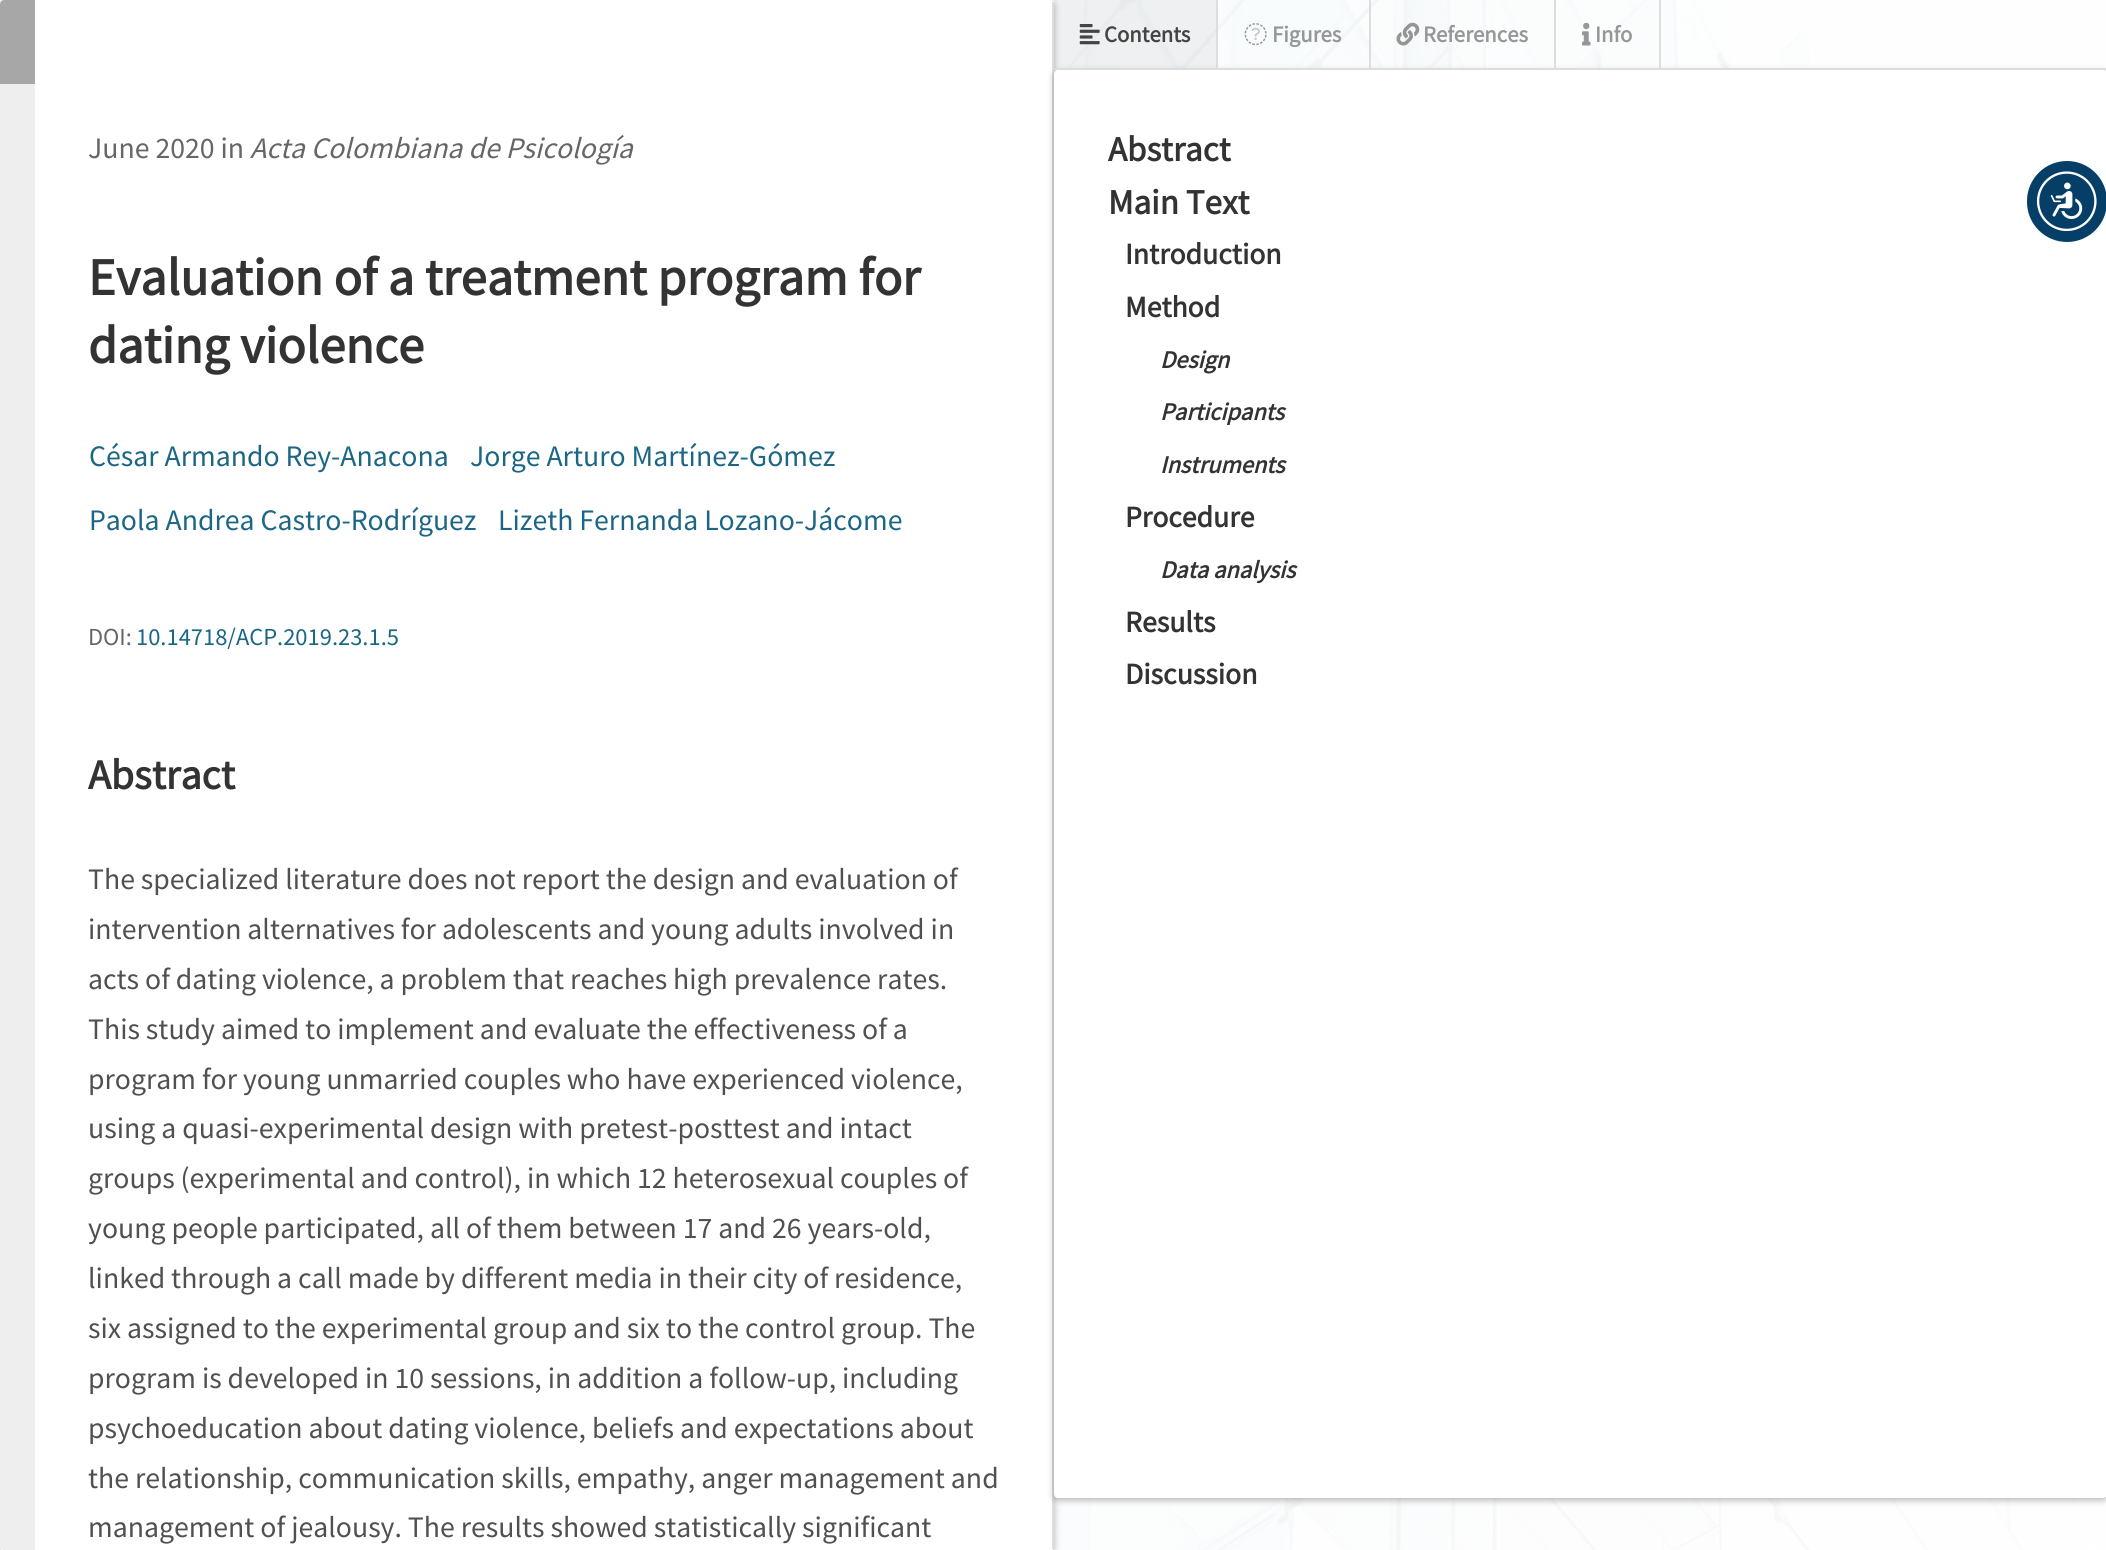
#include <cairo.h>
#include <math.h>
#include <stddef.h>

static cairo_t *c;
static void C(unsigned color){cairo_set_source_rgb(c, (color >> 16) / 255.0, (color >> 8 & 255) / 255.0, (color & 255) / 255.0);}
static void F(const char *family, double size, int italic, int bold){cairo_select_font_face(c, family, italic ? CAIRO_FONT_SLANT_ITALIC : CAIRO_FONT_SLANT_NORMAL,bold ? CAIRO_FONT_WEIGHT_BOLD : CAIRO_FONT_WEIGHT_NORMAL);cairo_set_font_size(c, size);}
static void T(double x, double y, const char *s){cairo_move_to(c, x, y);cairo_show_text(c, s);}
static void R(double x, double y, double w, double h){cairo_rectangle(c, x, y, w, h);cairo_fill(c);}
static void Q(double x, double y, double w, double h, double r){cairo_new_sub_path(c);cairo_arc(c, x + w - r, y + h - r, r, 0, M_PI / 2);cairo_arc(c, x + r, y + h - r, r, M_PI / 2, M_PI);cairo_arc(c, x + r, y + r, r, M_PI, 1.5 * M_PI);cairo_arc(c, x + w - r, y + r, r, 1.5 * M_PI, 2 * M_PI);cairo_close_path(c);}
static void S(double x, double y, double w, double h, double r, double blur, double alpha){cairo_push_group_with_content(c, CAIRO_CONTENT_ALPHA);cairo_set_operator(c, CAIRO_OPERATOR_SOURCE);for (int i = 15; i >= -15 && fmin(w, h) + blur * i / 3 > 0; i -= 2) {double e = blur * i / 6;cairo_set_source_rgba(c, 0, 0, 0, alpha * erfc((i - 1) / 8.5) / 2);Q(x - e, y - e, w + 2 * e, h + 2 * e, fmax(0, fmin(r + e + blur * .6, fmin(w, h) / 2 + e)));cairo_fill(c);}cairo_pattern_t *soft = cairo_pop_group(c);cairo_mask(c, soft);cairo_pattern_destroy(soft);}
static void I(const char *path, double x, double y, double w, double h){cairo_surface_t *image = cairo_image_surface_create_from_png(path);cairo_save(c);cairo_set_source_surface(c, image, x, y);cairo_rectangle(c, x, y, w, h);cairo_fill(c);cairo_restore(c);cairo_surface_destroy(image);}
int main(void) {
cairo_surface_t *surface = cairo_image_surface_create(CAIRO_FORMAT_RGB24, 2106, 1550);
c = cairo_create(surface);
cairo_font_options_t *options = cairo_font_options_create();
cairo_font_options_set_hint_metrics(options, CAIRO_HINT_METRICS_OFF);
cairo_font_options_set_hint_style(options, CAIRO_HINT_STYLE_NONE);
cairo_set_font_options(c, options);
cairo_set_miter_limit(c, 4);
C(0xffffff);
cairo_paint(c);
I("1.png",0,0,2106,1550);
C(0x000000);
S(0,2,1054,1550,4,3.5,.3);
C(0xffffff);
Q(0,0,1054,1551,4);
cairo_fill(c);
C(0xdddddd);
R(1052,2,2,1547);
C(0xffffff);
cairo_new_path(c);
cairo_move_to(c,4,0);
cairo_curve_to(c,2,0,0,2,0,4);
cairo_line_to(c,0,1547);
cairo_curve_to(c,0,1549,2,1550,4,1550);
cairo_line_to(c,1050,1550);
cairo_curve_to(c,1051,1550,1052,1549,1052,1547);
cairo_line_to(c,1052,4);
cairo_curve_to(c,1052,2,1051,0,1050,0);
cairo_close_path(c);
cairo_fill(c);
C(0xeeeeee);
cairo_new_path(c);
cairo_move_to(c,4,0);
cairo_curve_to(c,2,0,0,2,0,4);
cairo_line_to(c,0,1547);
cairo_curve_to(c,0,1549,2,1550,4,1550);
cairo_line_to(c,35,1550);
cairo_line_to(c,35,0);
cairo_close_path(c);
cairo_fill(c);
cairo_set_source_rgba(c,0,0,0,0.3);
cairo_new_path(c);
cairo_move_to(c,4,0);
cairo_curve_to(c,2,0,0,2,0,4);
cairo_line_to(c,0,84);
cairo_line_to(c,35,84);
cairo_line_to(c,35,0);
cairo_close_path(c);
cairo_fill(c);
F("Source Sans Pro",29.75,0,0);
C(0x666666);
T(88,158,"June 2020 in");
F("Source Sans Pro",29.75,1,0);
T(250,158,"Acta Colombiana de Psicología");
F("Source Sans Pro",52.5,0,1);
C(0x333333);
T(88,295,"Evaluation of a treatment program for");
T(88,363,"dating violence");
F("Source Sans Pro",29.75,0,0);
C(0x1b6685);
T(89,466,"César Armando Rey-Anacona");
T(470,466,"Jorge Arturo Martínez-Gómez");
T(89,530,"Paola Andrea Castro-Rodríguez");
T(498,530,"Lizeth Fernanda Lozano-Jácome");
F("Source Sans Pro",24.5,0,0);
C(0x666666);
T(88,645,"DOI:");
C(0x1b6685);
T(136,645,"10.14718/ACP.2019.23.1.5");
F("Source Sans Pro",42,0,1);
C(0x333333);
T(88,789,"Abstract");
F("Source Sans Pro",29.75,0,0);
C(0x505050);
T(88,889,"The specialized literature does not report the design and evaluation of");
T(88,939,"intervention alternatives for adolescents and young adults involved in");
T(88,989,"acts of dating violence, a problem that reaches high prevalence rates.");
T(88,1039,"This study aimed to implement and evaluate the effectiveness of a");
T(88,1089,"program for young unmarried couples who have experienced violence,");
T(88,1138,"using a quasi-experimental design with pretest-posttest and intact");
T(88,1188,"groups (experimental and control), in which 12 heterosexual couples of");
T(88,1238,"young people participated, all of them between 17 and 26 years-old,");
T(88,1288,"linked through a call made by different media in their city of residence,");
T(88,1338,"six assigned to the experimental group and six to the control group. The");
T(88,1388,"program is developed in 10 sessions, in addition a follow-up, including");
T(88,1438,"psychoeducation about dating violence, beliefs and expectations about");
T(88,1488,"the relationship, communication skills, empathy, anger management and");
T(88,1537,"management of jealousy. The results showed statistically significant");
C(0x000000);
S(1054,72,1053,1428,4,3.5,.3);
C(0xdddddd);
R(1054,68,1052,2);
cairo_set_source_rgba(c,0,0,0,0.05);
R(1054,0,162,68);
cairo_save(c);
cairo_rectangle(c,1054,0,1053,68);
cairo_clip(c);
C(0xdddddd);
cairo_new_path(c);
cairo_move_to(c,1218,0);
cairo_line_to(c,1218,75);
cairo_line_to(c,1216,70);
cairo_line_to(c,1216,0);
cairo_close_path(c);
cairo_fill(c);
cairo_restore(c);
I("2.png",1079,24,21,21);
F("Source Sans Pro",22.75,0,1);
C(0x444444);
T(1104,42,"Contents");
C(0xdddddd);
R(1369,0,2,68);
I("3.png",1244,23,23,23);
C(0x959798);
T(1272,42,"Figures");
C(0xdddddd);
R(1554,0,2,68);
I("4.png",1396,22,24,24);
C(0x959798);
T(1423,42,"References");
C(0xdddddd);
R(1659,0,2,68);
I("5.png",1582,22,9,24);
C(0x959798);
T(1595,42,"Info");
C(0xffffff);
Q(1054,70,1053,1428,4);
cairo_fill(c);
F("Source Sans Pro",35,0,1);
C(0x333333);
T(1108,161,"Abstract");
T(1108,214,"Main Text");
F("Source Sans Pro",29.75,0,1);
T(1125,264,"Introduction");
T(1125,317,"Method");
F("Source Sans Pro",24.5,1,1);
T(1160,368,"Design");
T(1160,420,"Participants");
T(1160,473,"Instruments");
F("Source Sans Pro",29.75,0,1);
T(1125,527,"Procedure");
F("Source Sans Pro",24.5,1,1);
T(1160,578,"Data analysis");
F("Source Sans Pro",29.75,0,1);
T(1125,632,"Results");
T(1125,684,"Discussion");
C(0x053f67);
Q(2027,161,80,81,40);
cairo_fill(c);
I("6.png",2036,171,61,61);
cairo_surface_write_to_png(surface, "o.png");
cairo_font_options_destroy(options);
cairo_destroy(c);
cairo_surface_destroy(surface);
return 0;
}
